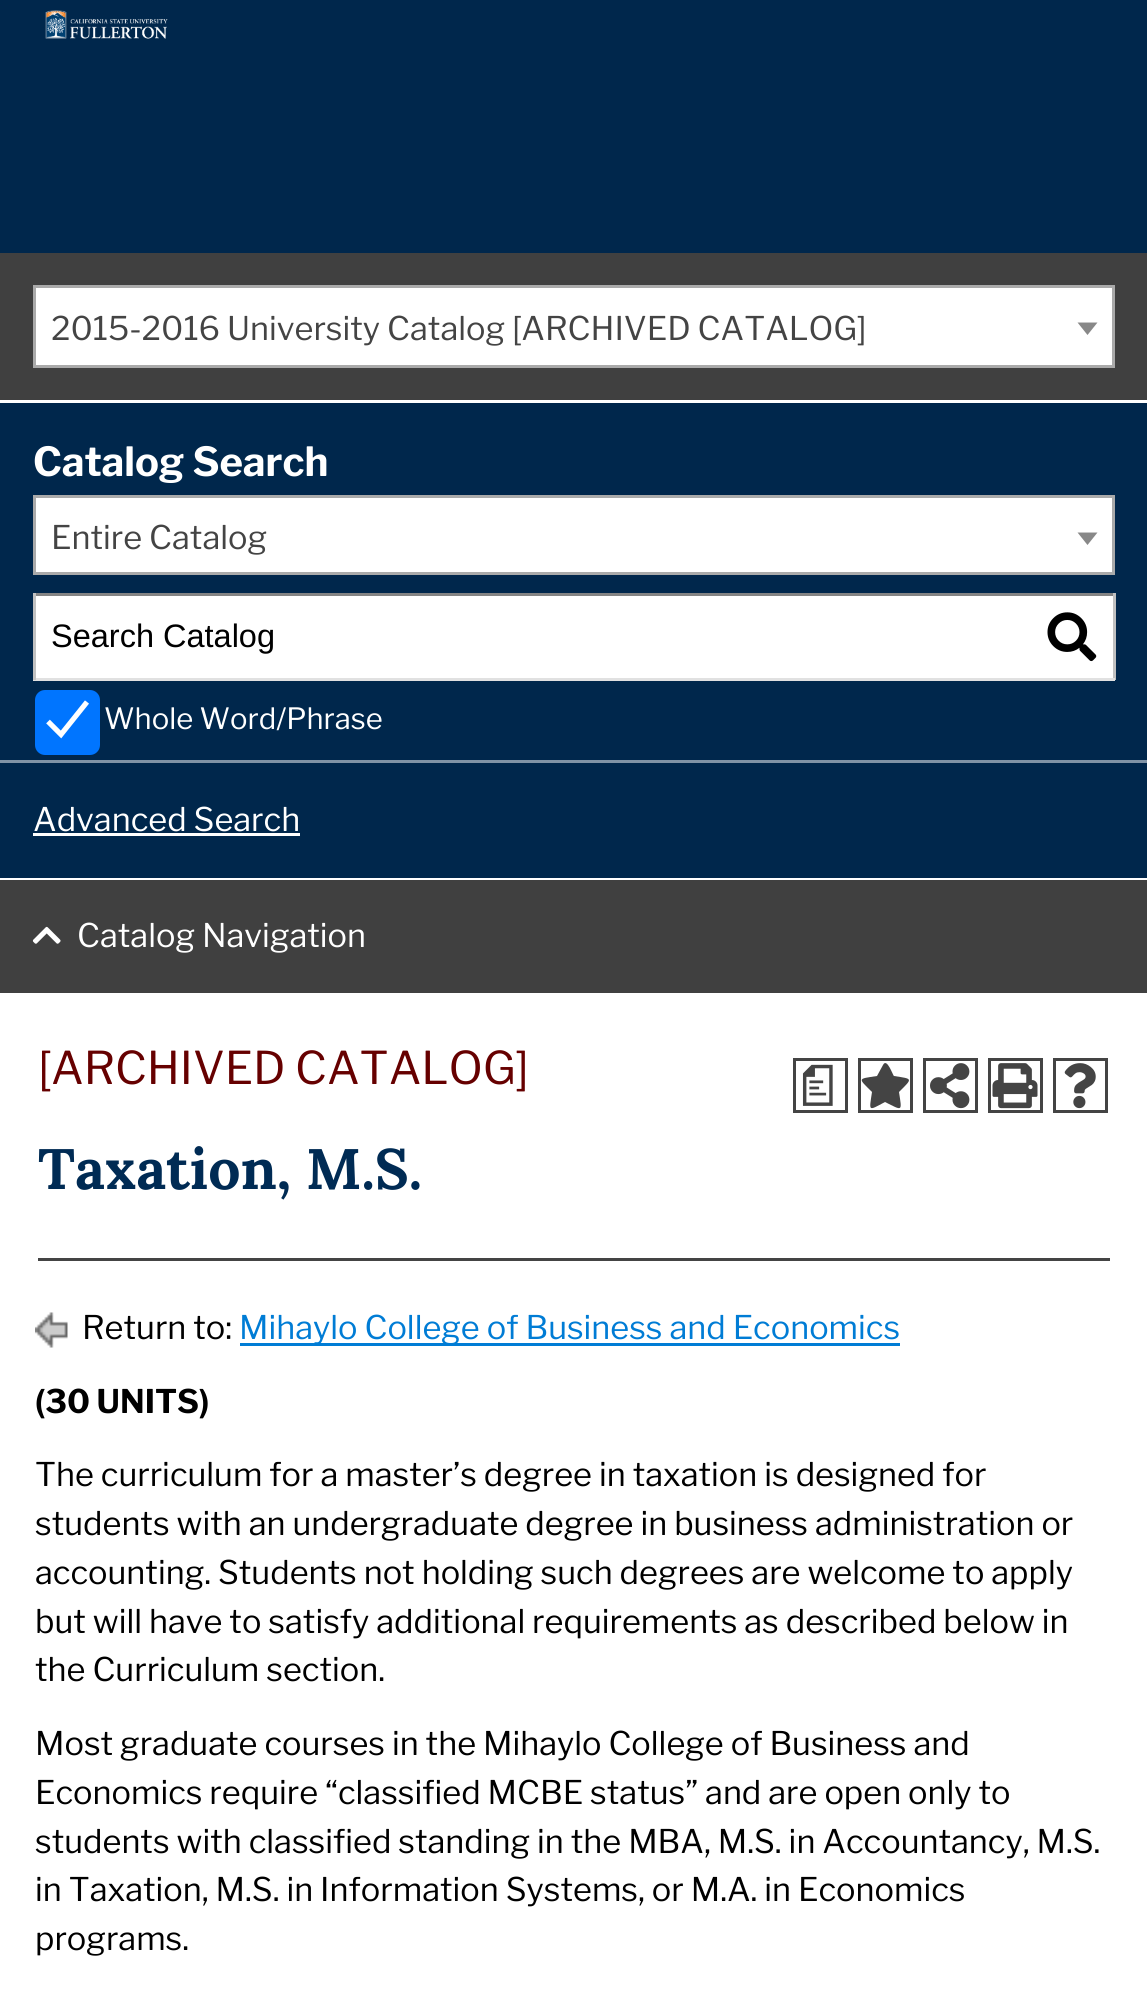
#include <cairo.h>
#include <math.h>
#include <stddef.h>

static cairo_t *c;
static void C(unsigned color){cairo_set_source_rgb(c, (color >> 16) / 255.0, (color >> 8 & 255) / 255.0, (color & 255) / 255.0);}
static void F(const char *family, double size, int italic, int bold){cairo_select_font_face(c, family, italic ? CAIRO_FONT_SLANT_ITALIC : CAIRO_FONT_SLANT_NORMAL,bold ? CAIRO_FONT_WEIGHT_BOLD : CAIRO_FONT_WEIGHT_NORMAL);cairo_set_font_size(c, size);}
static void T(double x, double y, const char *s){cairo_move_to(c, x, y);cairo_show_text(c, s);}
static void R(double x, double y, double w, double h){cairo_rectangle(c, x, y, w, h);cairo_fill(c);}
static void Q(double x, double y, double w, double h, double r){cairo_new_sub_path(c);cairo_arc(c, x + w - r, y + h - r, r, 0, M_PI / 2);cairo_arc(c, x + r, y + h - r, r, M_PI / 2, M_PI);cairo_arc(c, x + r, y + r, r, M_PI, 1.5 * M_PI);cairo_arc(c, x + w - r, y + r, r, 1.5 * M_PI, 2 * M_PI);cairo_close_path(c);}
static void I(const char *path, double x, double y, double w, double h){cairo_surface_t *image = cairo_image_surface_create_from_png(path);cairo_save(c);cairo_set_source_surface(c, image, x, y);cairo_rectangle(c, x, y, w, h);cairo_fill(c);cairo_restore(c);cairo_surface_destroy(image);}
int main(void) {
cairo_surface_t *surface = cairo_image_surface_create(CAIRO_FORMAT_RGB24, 1147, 2003);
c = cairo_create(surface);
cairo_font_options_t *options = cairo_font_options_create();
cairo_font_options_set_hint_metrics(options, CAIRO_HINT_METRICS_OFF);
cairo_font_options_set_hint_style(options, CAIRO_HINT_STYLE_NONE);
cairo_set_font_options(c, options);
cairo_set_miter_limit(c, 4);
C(0xffffff);
cairo_paint(c);
C(0x00274c);
R(0,0,1147,253);
I("1.png",45,10,123,29);
C(0x404040);
R(0,253,1147,147);
C(0xffffff);
cairo_rectangle(c,34.5,286.5,1079,80);
cairo_fill_preserve(c);
C(0xaaaaaa);
cairo_set_line_width(c,3);
cairo_stroke(c);
F("Libre Franklin",32.5,0,0);
C(0x444444);
T(51,340,"2015-2016 University Catalog [ARCHIVED CATALOG]");
C(0x888888);
cairo_new_path(c);
cairo_move_to(c,1077.5,322.5);
cairo_line_to(c,1097.5,322.5);
cairo_line_to(c,1087.5,335);
cairo_close_path(c);
cairo_fill(c);
C(0x00274c);
R(0,403,1147,475);
F("Libre Franklin",40,0,1);
C(0xffffff);
T(33,476,"Catalog Search");
cairo_rectangle(c,34.5,496.5,1079,77);
cairo_fill_preserve(c);
C(0xaaaaaa);
cairo_stroke(c);
F("Libre Franklin",32.5,0,0);
C(0x444444);
T(51,549,"Entire Catalog");
C(0x888888);
cairo_new_path(c);
cairo_move_to(c,1077.5,532.5);
cairo_line_to(c,1097.5,532.5);
cairo_line_to(c,1087.5,545);
cairo_close_path(c);
cairo_fill(c);
C(0xffffff);
R(36,596,1077,82);
C(0x848484);
R(33,593,1082,3);
C(0xc1c1c1);
R(1113,593,3,87);
C(0xe1e1e1);
R(33,678,1082,3);
C(0xc1c1c1);
R(33,593,3,87);
F("Liberation Sans",32.5,0,0);
C(0x000000);
T(51,647,"Search Catalog");
I("2.png",1047,612,50,50);
C(0x0075ff);
Q(35,690,65,65,10);
cairo_fill(c);
cairo_new_path(c);
cairo_move_to(c,48,721.5);
cairo_line_to(c,61,734.5);
cairo_line_to(c,87,702);
C(0xffffff);
cairo_set_line_width(c,5.2);
cairo_stroke(c);
F("Libre Franklin",29.25,0,0);
T(104,729,"Whole Word/Phrase");
C(0x8093a6);
R(0,760,1147,3);
F("Libre Franklin",32.5,0,0);
C(0xffffff);
T(33,831,"Advanced Search");
R(33,833,267,3);
C(0x404040);
R(0,880,1147,113);
I("3.png",32,926,29,18);
C(0xffffff);
T(77,947,"Catalog Navigation");
F("Libre Franklin",45,0,0);
C(0x660000);
T(38,1084,"[ARCHIVED CATALOG]");
cairo_rectangle(c,794.5,1059.5,52,52);
C(0x444444);
cairo_set_line_width(c,3);
cairo_stroke(c);
F("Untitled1 Medium",45,0,0);
T(795,1099,"a");
cairo_rectangle(c,859.5,1059.5,52,52);
cairo_stroke(c);
cairo_new_path(c);
cairo_move_to(c,883,1065);
cairo_curve_to(c,887,1057,893,1076,894,1076);
cairo_curve_to(c,913,1079,913,1078,899,1092);
cairo_curve_to(c,902,1112,903,1111,885,1102);
cairo_curve_to(c,868,1111,869,1112,872,1092);
cairo_curve_to(c,858,1078,857,1079,877,1076);
cairo_close_path(c);
cairo_fill(c);
cairo_rectangle(c,924.5,1059.5,52,52);
cairo_stroke(c);
I("4.png",930,1063,40,46);
cairo_rectangle(c,989.5,1059.5,52,52);
cairo_stroke(c);
I("5.png",992,1063,46,46);
cairo_rectangle(c,1054.5,1059.5,52,52);
cairo_stroke(c);
I("6.png",1064,1063,32,46);
F("Lora",57,0,1);
C(0x002b54);
T(38,1189,"Taxation, M.S.");
C(0x444444);
R(38,1258,1072,3);
I("7.png",35,1312,33,36);
F("Libre Franklin",32.5,0,0);
C(0x000000);
T(82,1339,"Return to:");
C(0x007cd5);
R(240,1343,660,3);
T(239,1339,"Mihaylo College of Business and Economics");
F("Libre Franklin",32.5,0,1);
C(0x000000);
T(35,1413,"(30 UNITS)");
F("Libre Franklin",32.5,0,0);
T(35,1486,"The curriculum for a master’s degree in taxation is designed for");
T(35,1535,"students with an undergraduate degree in business administration or");
T(35,1584,"accounting. Students not holding such degrees are welcome to apply");
T(35,1633,"but will have to satisfy additional requirements as described below in");
T(35,1681,"the Curriculum section.");
T(35,1755,"Most graduate courses in the Mihaylo College of Business and");
T(35,1804,"Economics require “classified MCBE status” and are open only to");
T(35,1853,"students with classified standing in the MBA, M.S. in Accountancy, M.S.");
T(35,1901,"in Taxation, M.S. in Information Systems, or M.A. in Economics");
T(35,1950,"programs.");
cairo_surface_write_to_png(surface, "o.png");
cairo_font_options_destroy(options);
cairo_destroy(c);
cairo_surface_destroy(surface);
return 0;
}
